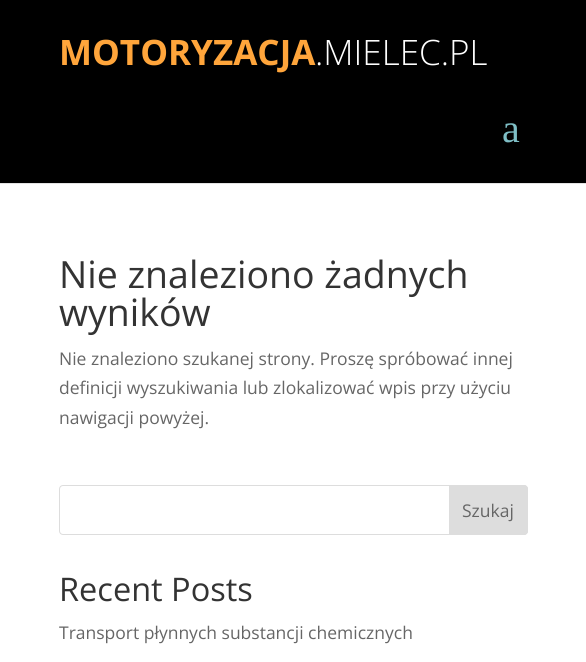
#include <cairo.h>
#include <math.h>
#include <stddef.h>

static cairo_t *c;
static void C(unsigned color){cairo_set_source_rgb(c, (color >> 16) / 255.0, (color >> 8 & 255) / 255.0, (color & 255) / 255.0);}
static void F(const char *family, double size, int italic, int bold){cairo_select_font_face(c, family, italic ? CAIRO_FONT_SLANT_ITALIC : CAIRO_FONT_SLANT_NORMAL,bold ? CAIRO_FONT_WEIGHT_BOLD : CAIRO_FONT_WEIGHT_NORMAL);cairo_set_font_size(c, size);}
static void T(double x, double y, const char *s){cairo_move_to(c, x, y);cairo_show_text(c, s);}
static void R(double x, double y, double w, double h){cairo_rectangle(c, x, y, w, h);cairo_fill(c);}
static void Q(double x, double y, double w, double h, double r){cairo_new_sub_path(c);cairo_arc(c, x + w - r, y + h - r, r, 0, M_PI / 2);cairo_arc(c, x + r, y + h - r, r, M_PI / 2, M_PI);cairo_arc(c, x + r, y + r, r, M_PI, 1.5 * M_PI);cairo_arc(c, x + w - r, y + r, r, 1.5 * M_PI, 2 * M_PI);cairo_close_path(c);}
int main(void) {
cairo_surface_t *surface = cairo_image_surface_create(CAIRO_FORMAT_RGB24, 586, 662);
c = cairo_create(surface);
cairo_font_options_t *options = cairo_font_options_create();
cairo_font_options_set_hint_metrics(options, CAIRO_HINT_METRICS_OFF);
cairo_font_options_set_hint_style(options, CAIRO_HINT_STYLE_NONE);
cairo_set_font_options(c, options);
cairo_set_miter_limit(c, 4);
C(0xffffff);
cairo_paint(c);
C(0x000000);
R(0,0,586,183);
C(0xe2e2e2);
R(0,183,586,1);
F("Open Sans",35,0,1);
C(0xffa53b);
T(59,65,"MOTORYZACJA");
F("Open Sans Light",35,0,0);
C(0xffffff);
T(315,65,".MIELEC.PL");
F("Liberation Serif",40,0,0);
C(0x7ebec5);
T(502,142,"a");
F("Open Sans",37.5,0,0);
C(0x333333);
T(59,288,"Nie znaleziono żadnych");
T(59,326,"wyników");
F("Open Sans",17.5,0,0);
C(0x666666);
T(59,365,"Nie znaleziono szukanej strony. Proszę spróbować innej");
T(59,394,"definicji wyszukiwania lub zlokalizować wpis przy użyciu");
T(59,424,"nawigacji powyżej.");
Q(59.5,485.5,468,49,3.5);
C(0xdddddd);
cairo_set_line_width(c,1);
cairo_stroke(c);
cairo_new_path(c);
cairo_move_to(c,449.5,485.5);
cairo_line_to(c,524,485.5);
cairo_curve_to(c,526,485.5,527.5,487,527.5,489);
cairo_line_to(c,527.5,531);
cairo_curve_to(c,527.5,533,526,534.5,524,534.5);
cairo_line_to(c,449.5,534.5);
cairo_close_path(c);
cairo_fill_preserve(c);
cairo_stroke(c);
C(0x666666);
T(462,517,"Szukaj");
F("Open Sans",32.5,0,0);
C(0x333333);
T(59,601,"Recent Posts");
F("Open Sans",17.5,0,0);
C(0x666666);
T(59,639,"Transport płynnych substancji chemicznych");
cairo_surface_write_to_png(surface, "o.png");
cairo_font_options_destroy(options);
cairo_destroy(c);
cairo_surface_destroy(surface);
return 0;
}
